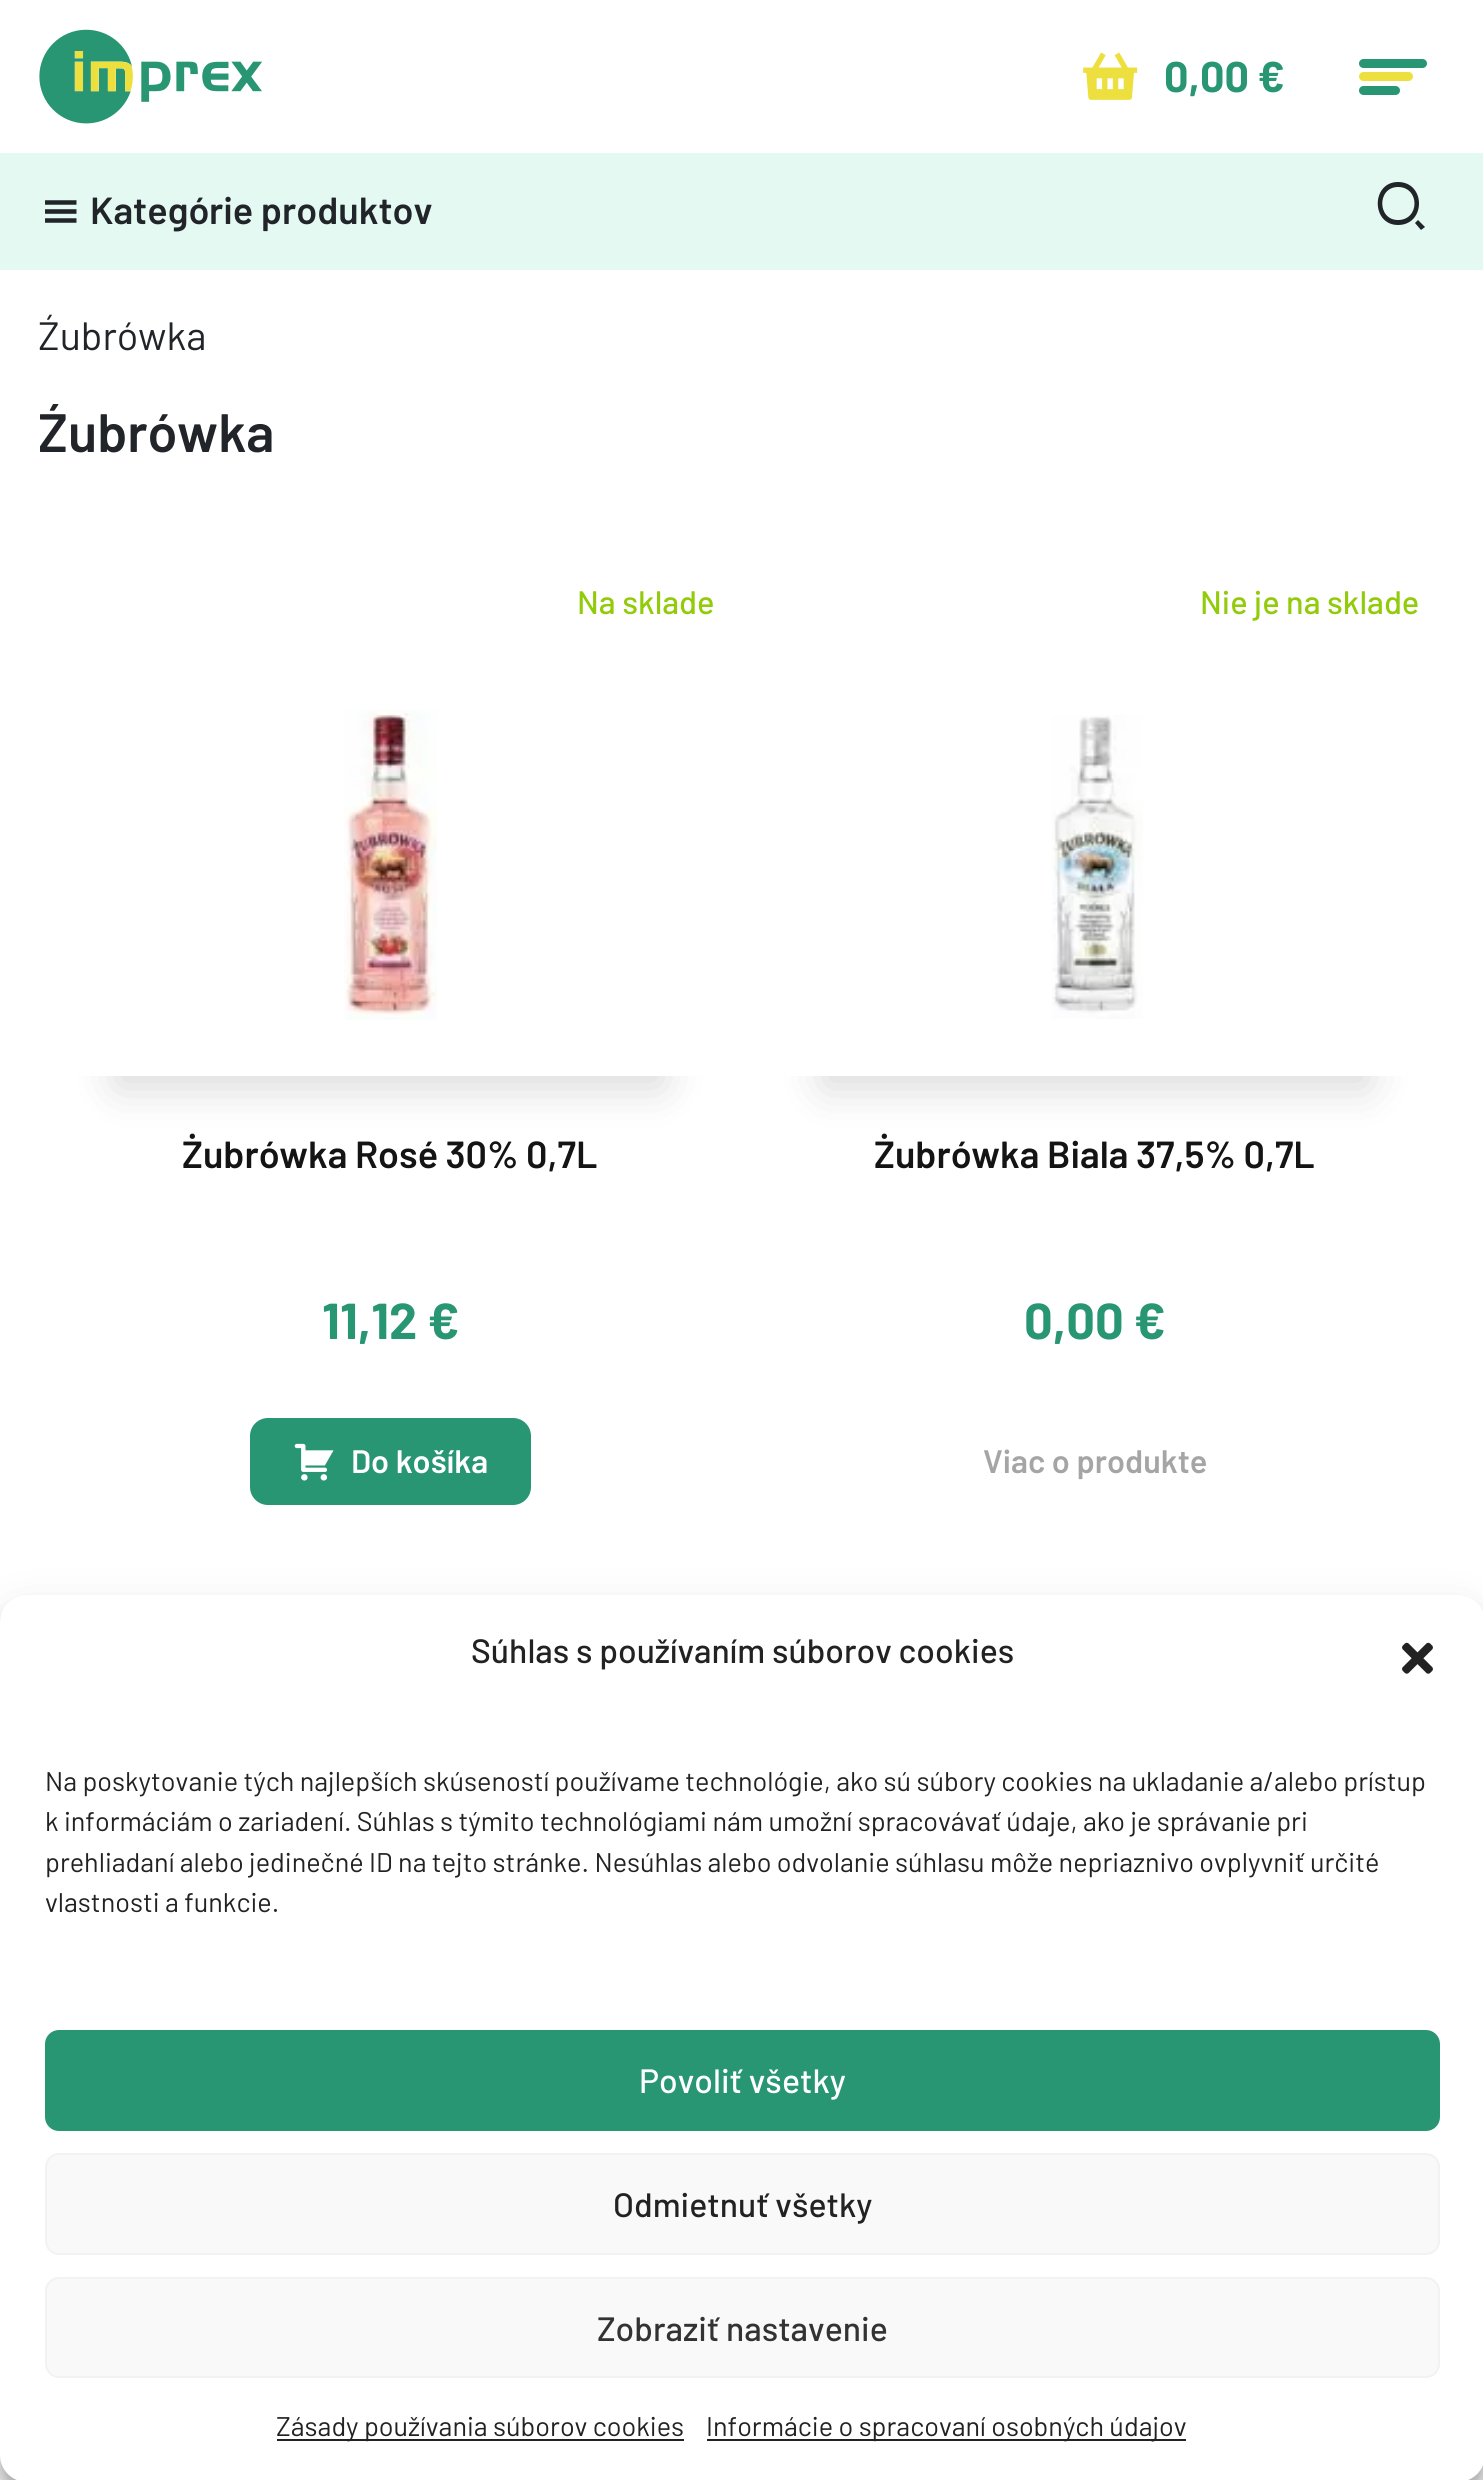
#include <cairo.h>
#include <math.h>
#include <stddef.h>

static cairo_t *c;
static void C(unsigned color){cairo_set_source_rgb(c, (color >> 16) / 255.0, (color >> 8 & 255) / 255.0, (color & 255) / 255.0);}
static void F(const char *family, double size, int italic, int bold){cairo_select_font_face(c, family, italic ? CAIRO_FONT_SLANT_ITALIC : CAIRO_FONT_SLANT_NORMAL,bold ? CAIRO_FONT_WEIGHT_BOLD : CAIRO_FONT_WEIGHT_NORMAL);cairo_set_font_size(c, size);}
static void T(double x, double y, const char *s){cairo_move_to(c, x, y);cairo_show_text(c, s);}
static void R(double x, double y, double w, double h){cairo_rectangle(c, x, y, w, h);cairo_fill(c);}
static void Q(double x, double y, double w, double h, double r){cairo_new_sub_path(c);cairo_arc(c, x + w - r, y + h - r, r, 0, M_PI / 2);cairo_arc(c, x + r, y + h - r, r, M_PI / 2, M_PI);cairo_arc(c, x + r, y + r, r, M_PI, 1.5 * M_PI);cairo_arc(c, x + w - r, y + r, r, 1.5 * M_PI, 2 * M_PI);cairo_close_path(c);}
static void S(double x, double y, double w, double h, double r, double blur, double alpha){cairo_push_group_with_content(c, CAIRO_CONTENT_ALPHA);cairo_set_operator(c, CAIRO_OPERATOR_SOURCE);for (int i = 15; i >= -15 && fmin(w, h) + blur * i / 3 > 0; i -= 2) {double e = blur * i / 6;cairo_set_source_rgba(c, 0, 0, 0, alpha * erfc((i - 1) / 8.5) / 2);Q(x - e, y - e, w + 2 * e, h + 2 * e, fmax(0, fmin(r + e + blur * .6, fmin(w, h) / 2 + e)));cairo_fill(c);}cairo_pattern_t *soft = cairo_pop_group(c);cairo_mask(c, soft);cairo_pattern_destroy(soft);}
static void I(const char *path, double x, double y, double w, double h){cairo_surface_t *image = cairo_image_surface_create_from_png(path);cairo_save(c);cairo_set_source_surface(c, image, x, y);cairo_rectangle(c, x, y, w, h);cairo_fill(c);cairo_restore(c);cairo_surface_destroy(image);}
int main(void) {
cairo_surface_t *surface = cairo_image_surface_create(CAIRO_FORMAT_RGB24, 1483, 2480);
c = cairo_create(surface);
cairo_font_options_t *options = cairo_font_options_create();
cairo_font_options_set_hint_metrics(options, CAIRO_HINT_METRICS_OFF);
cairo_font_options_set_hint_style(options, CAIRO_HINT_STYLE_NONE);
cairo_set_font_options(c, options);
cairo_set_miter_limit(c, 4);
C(0xffffff);
cairo_paint(c);
I("1.png",39,29,223,95);
I("2.png",1083,52,55,48);
F("Barlow",43,0,1);
C(0x289673);
T(1164,92,"0,00 €");
Q(1359,59,68,9,4.5);
cairo_fill(c);
C(0xede03e);
Q(1359,72,54,9,4.5);
cairo_fill(c);
C(0x289673);
Q(1359,86,41,9,4.5);
cairo_fill(c);
C(0xe4f9f1);
R(0,153,1483,117);
I("3.png",45,200,32,23);
F("Barlow SemiBold",37.75,0,0);
C(0x212529);
T(90,224,"Kategórie produktov");
cairo_new_path(c);
cairo_move_to(c,1398,182);
cairo_curve_to(c,1426,182,1426,225,1398,225);
cairo_curve_to(c,1371,225,1371,182,1398,182);
cairo_close_path(c);
cairo_move_to(c,1398,220);
cairo_curve_to(c,1420,220,1420,187,1398,187);
cairo_curve_to(c,1377,187,1377,220,1398,220);
cairo_close_path(c);
cairo_move_to(c,1418,220);
cairo_line_to(c,1425,227);
cairo_line_to(c,1421,230);
cairo_line_to(c,1415,223);
cairo_close_path(c);
cairo_fill(c);
F("Barlow",39.5,0,0);
T(38,350,"Źubrówka");
F("Barlow SemiBold",54,0,0);
T(38,452,"Źubrówka");
C(0x000000);
S(117,682,545,405,0,22.5,.15);
C(0xffffff);
Q(72,581,635,495,11);
cairo_fill(c);
I("4.png",344,709,93,311);
F("Barlow Medium",32.5,0,0);
C(0x92cb0a);
T(577,614,"Na sklade");
F("Barlow SemiBold",37.75,0,0);
C(0x141414);
T(182,1168,"Żubrówka Rosé 30% 0,7L");
F("Barlow",50.5,0,1);
C(0x289673);
T(322,1339,"11,12 €");
Q(250,1418,281,87,18);
cairo_fill(c);
I("5.png",294,1443,40,38);
F("Barlow SemiBold",32.5,0,0);
C(0xffffff);
T(351,1473,"Do košíka");
C(0x000000);
S(824,682,544,405,0,22.5,.15);
C(0xffffff);
Q(779,581,634,495,11);
cairo_fill(c);
I("6.png",1051,715,92,304);
F("Barlow Medium",32.5,0,0);
C(0x92cb0a);
T(1200,614,"Nie je na sklade");
F("Barlow SemiBold",37.75,0,0);
C(0x141414);
T(874,1168,"Żubrówka Biala 37,5% 0,7L");
F("Barlow",50.5,0,1);
C(0x289673);
T(1024,1339,"0,00 €");
F("Barlow SemiBold",32.5,0,0);
C(0xa5a5a5);
T(983,1473,"Viac o produkte");
C(0x000000);
S(0,1609,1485,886,27,7,.23);
S(0,1618,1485,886,27,22.5,.19);
C(0xffffff);
Q(0,1595,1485,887,27);
cairo_fill(c);
F("Barlow Medium",33.75,0,0);
C(0x222222);
T(471,1663,"Súhlas s používaním súborov cookies");
I("7.png",1402,1642,31,32);
F("Barlow",27,0,0);
T(45,1791,"Na poskytovanie tých najlepších skúseností používame technológie, ako sú súbory cookies na ukladanie a/alebo prístup");
T(45,1831,"k informáciám o zariadení. Súhlas s týmito technológiami nám umožní spracovávať údaje, ako je správanie pri");
T(45,1872,"prehliadaní alebo jedinečné ID na tejto stránke. Nesúhlas alebo odvolanie súhlasu môže nepriaznivo ovplyvniť určité");
T(45,1912,"vlastnosti a funkcie.");
C(0x289673);
Q(46,2031,1393,99,13);
cairo_fill_preserve(c);
cairo_stroke(c);
F("Barlow Medium",33.75,0,0);
C(0xffffff);
T(639,2093,"Povoliť všetky");
C(0xf9f9f9);
Q(46,2154,1393,100,13);
cairo_fill_preserve(c);
C(0xf2f2f2);
cairo_stroke(c);
C(0x222222);
T(613,2217,"Odmietnuť všetky");
C(0xf9f9f9);
Q(46,2278,1393,99,13);
cairo_fill_preserve(c);
C(0xf2f2f2);
cairo_stroke(c);
C(0x333333);
T(597,2341,"Zobraziť nastavenie");
C(0x222222);
R(277,2439,407,2);
F("Barlow",27,0,0);
T(276,2436,"Zásady používania súborov cookies");
R(707,2439,479,2);
T(706,2436,"Informácie o spracovaní osobných údajov");
cairo_surface_write_to_png(surface, "o.png");
cairo_font_options_destroy(options);
cairo_destroy(c);
cairo_surface_destroy(surface);
return 0;
}
